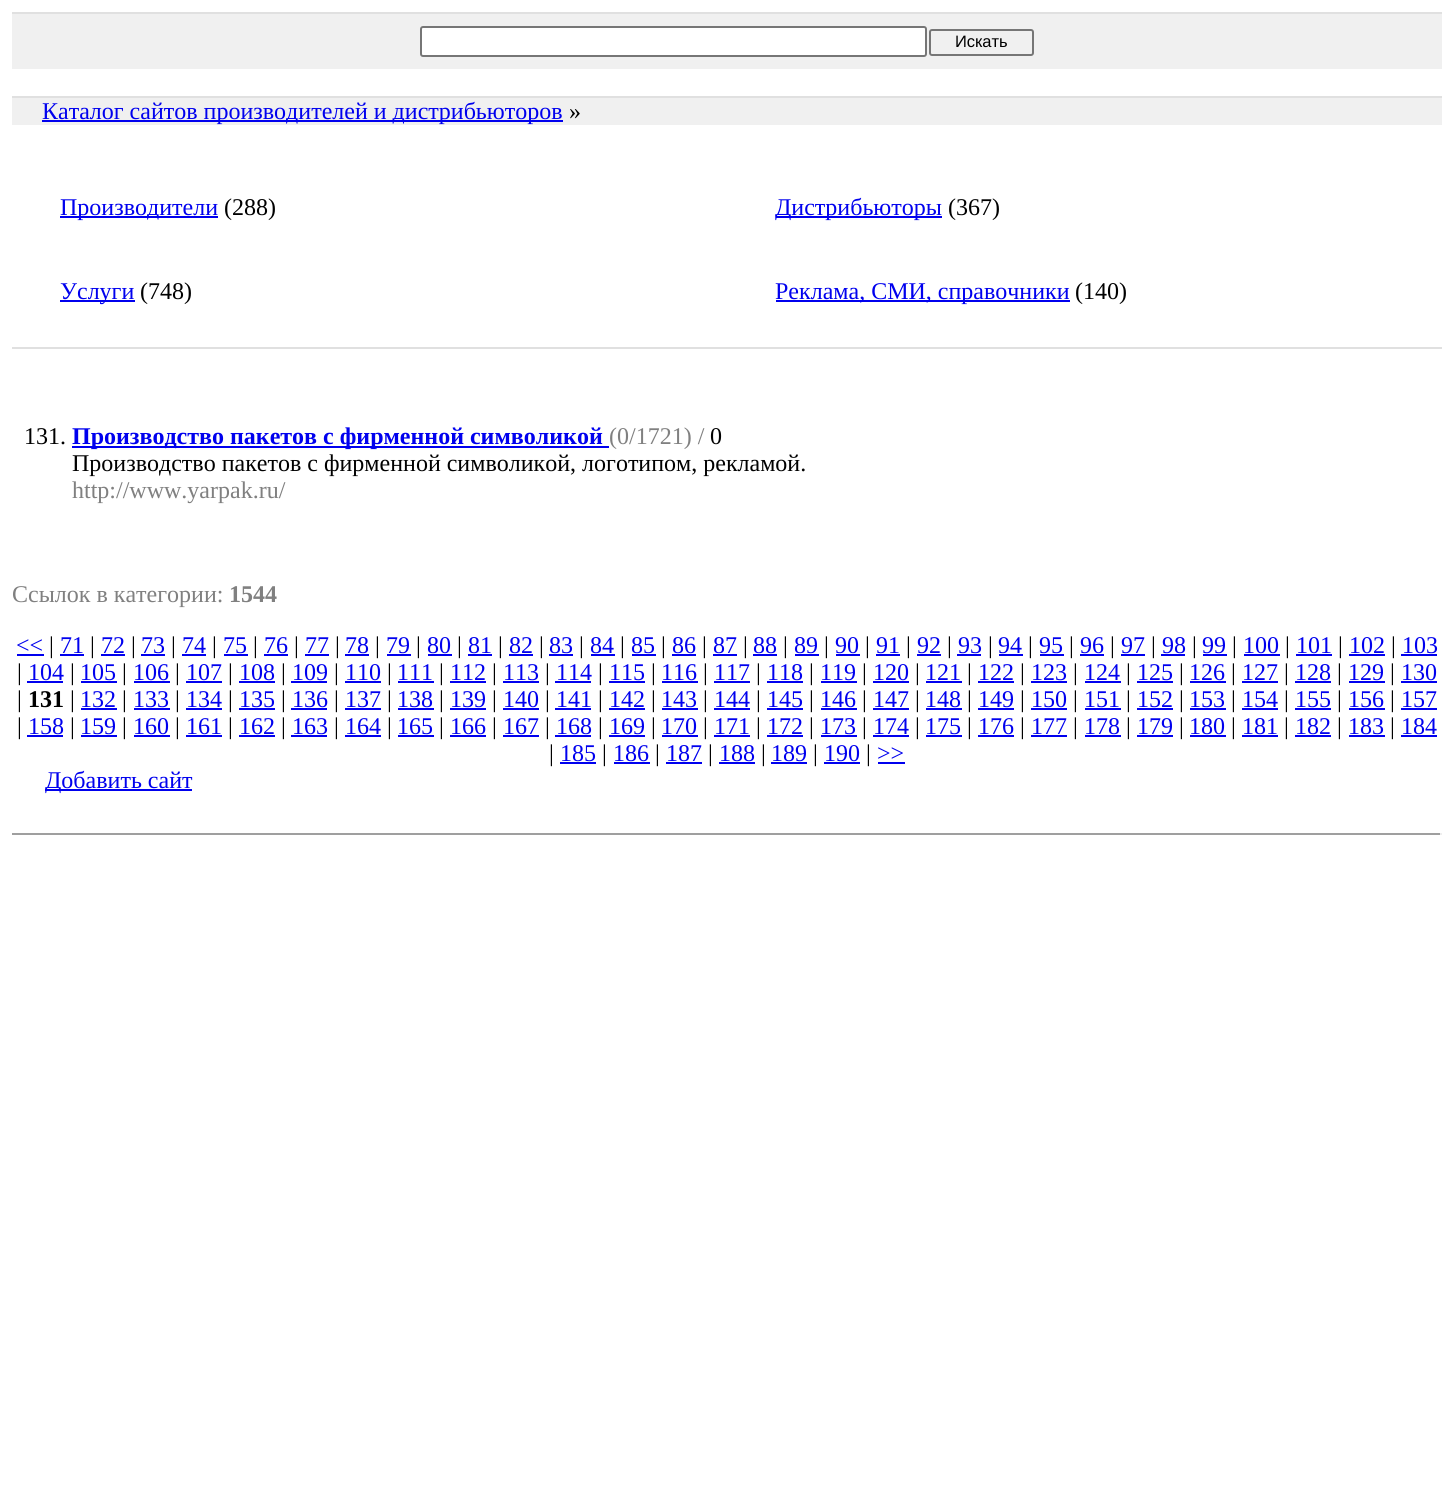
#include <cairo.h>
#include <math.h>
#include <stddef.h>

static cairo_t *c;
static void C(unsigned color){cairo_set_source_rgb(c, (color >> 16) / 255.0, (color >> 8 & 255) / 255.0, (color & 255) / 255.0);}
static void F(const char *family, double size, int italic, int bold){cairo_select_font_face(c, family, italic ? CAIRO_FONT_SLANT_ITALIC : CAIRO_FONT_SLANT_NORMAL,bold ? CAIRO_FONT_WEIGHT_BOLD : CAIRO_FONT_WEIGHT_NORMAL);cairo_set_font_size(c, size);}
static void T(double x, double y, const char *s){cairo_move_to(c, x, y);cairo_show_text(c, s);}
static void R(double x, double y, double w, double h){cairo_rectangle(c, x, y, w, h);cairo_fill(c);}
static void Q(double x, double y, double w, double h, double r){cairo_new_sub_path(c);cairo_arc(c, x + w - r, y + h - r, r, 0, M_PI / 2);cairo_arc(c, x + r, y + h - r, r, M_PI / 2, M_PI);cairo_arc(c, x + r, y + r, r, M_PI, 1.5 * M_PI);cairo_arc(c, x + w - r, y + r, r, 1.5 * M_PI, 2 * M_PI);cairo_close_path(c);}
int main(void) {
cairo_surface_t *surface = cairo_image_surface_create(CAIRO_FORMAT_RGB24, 1453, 1491);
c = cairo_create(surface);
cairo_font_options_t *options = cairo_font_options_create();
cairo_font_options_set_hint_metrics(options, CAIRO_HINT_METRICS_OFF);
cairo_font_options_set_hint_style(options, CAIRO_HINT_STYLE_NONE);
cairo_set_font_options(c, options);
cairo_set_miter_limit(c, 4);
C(0xffffff);
cairo_paint(c);
C(0xe0e0e0);
R(12,12,1430,2);
C(0xf0f0f0);
R(12,14,1430,55);
C(0xffffff);
Q(421,27,505,29,2);
cairo_fill_preserve(c);
C(0x767676);
cairo_stroke(c);
Q(930,30,103,25,2);
cairo_stroke(c);
F("Liberation Sans",16.5,0,0);
C(0x000000);
T(955,47,"Искать");
C(0xe0e0e0);
R(12,96,1430,2);
C(0xf0f0f0);
R(12,98,1430,27);
C(0x0000ee);
R(42,120,521,2);
F("Liberation Serif",24,0,0);
T(42,119,"Каталог сайтов производителей и дистрибьюторов");
C(0x000000);
T(569,119,"»");
C(0x0000ee);
R(60,216,158,2);
T(60,215,"Производители");
C(0x000000);
T(224,215,"(288)");
C(0x0000ee);
R(776,216,166,2);
T(775,215,"Дистрибьюторы");
C(0x000000);
T(948,215,"(367)");
C(0x0000ee);
R(60,300,75,2);
T(60,299,"Услуги");
C(0x000000);
T(140,299,"(748)");
C(0x0000ee);
R(776,300,294,2);
T(775,299,"Реклама, СМИ, справочники");
C(0x000000);
T(1075,299,"(140)");
C(0xe0e0e0);
R(12,347,1430,2);
C(0x000000);
T(24,444,"131.");
C(0x0000ee);
R(72,446,537,2);
F("Liberation Serif",24,0,1);
T(72,444,"Производство пакетов с фирменной символикой");
F("Liberation Serif",24,0,0);
C(0x808080);
T(609,444,"(0/1721) /");
C(0x000000);
T(710,444,"0");
T(72,471,"Производство пакетов с фирменной символикой, логотипом, рекламой.");
C(0x808080);
T(72,498,"http://www.yarpak.ru/");
T(12,602,"Ссылок в категории:");
F("Liberation Serif",24,0,1);
T(229,602,"1544");
F("Liberation Serif",24,0,0);
C(0x0000ee);
T(16,653,"<<");
R(17,654,27,2);
C(0x000000);
T(49,653,"|");
C(0x0000ee);
T(60,653,"71");
R(60,654,24,2);
C(0x000000);
T(90,653,"|");
C(0x0000ee);
T(101,653,"72");
R(101,654,24,2);
C(0x000000);
T(131,653,"|");
C(0x0000ee);
T(141,653,"73");
R(141,654,24,2);
C(0x000000);
T(171,653,"|");
C(0x0000ee);
T(182,653,"74");
R(182,654,24,2);
C(0x000000);
T(212,653,"|");
C(0x0000ee);
T(223,653,"75");
R(224,654,24,2);
C(0x000000);
T(253,653,"|");
C(0x0000ee);
T(264,653,"76");
R(264,654,24,2);
C(0x000000);
T(294,653,"|");
C(0x0000ee);
T(305,653,"77");
R(305,654,24,2);
C(0x000000);
T(335,653,"|");
C(0x0000ee);
T(345,653,"78");
R(345,654,24,2);
C(0x000000);
T(375,653,"|");
C(0x0000ee);
T(386,653,"79");
R(387,654,24,2);
C(0x000000);
T(416,653,"|");
C(0x0000ee);
T(427,653,"80");
R(428,654,24,2);
C(0x000000);
T(457,653,"|");
C(0x0000ee);
T(468,653,"81");
R(468,654,24,2);
C(0x000000);
T(498,653,"|");
C(0x0000ee);
T(509,653,"82");
R(509,654,24,2);
C(0x000000);
T(539,653,"|");
C(0x0000ee);
T(549,653,"83");
R(549,654,24,2);
C(0x000000);
T(579,653,"|");
C(0x0000ee);
T(590,653,"84");
R(591,654,24,2);
C(0x000000);
T(620,653,"|");
C(0x0000ee);
T(631,653,"85");
R(632,654,24,2);
C(0x000000);
T(661,653,"|");
C(0x0000ee);
T(672,653,"86");
R(672,654,24,2);
C(0x000000);
T(702,653,"|");
C(0x0000ee);
T(713,653,"87");
R(713,654,24,2);
C(0x000000);
T(743,653,"|");
C(0x0000ee);
T(753,653,"88");
R(753,654,24,2);
C(0x000000);
T(783,653,"|");
C(0x0000ee);
T(794,653,"89");
R(795,654,24,2);
C(0x000000);
T(824,653,"|");
C(0x0000ee);
T(835,653,"90");
R(836,654,24,2);
C(0x000000);
T(865,653,"|");
C(0x0000ee);
T(876,653,"91");
R(876,654,24,2);
C(0x000000);
T(906,653,"|");
C(0x0000ee);
T(917,653,"92");
R(917,654,24,2);
C(0x000000);
T(947,653,"|");
C(0x0000ee);
T(958,653,"93");
R(957,654,24,2);
C(0x000000);
T(988,653,"|");
C(0x0000ee);
T(998,653,"94");
R(999,654,24,2);
C(0x000000);
T(1028,653,"|");
C(0x0000ee);
T(1039,653,"95");
R(1040,654,24,2);
C(0x000000);
T(1069,653,"|");
C(0x0000ee);
T(1080,653,"96");
R(1080,654,24,2);
C(0x000000);
T(1110,653,"|");
C(0x0000ee);
T(1121,653,"97");
R(1121,654,24,2);
C(0x000000);
T(1151,653,"|");
C(0x0000ee);
T(1162,653,"98");
R(1161,654,24,2);
C(0x000000);
T(1192,653,"|");
C(0x0000ee);
T(1202,653,"99");
R(1203,654,24,2);
C(0x000000);
T(1232,653,"|");
C(0x0000ee);
T(1243,653,"100");
R(1244,654,36,2);
C(0x000000);
T(1285,653,"|");
C(0x0000ee);
T(1296,653,"101");
R(1296,654,36,2);
C(0x000000);
T(1338,653,"|");
C(0x0000ee);
T(1349,653,"102");
R(1349,654,36,2);
C(0x000000);
T(1391,653,"|");
C(0x0000ee);
T(1402,653,"103");
R(1401,654,36,2);
C(0x000000);
T(17,680,"|");
C(0x0000ee);
T(28,680,"104");
R(27,681,36,2);
C(0x000000);
T(70,680,"|");
C(0x0000ee);
T(80,680,"105");
R(81,681,36,2);
C(0x000000);
T(122,680,"|");
C(0x0000ee);
T(133,680,"106");
R(134,681,36,2);
C(0x000000);
T(175,680,"|");
C(0x0000ee);
T(186,680,"107");
R(186,681,36,2);
C(0x000000);
T(228,680,"|");
C(0x0000ee);
T(239,680,"108");
R(239,681,36,2);
C(0x000000);
T(281,680,"|");
C(0x0000ee);
T(292,680,"109");
R(291,681,36,2);
C(0x000000);
T(334,680,"|");
C(0x0000ee);
T(345,680,"110");
R(345,681,36,2);
C(0x000000);
T(387,680,"|");
C(0x0000ee);
T(397,680,"111");
R(398,681,36,2);
C(0x000000);
T(439,680,"|");
C(0x0000ee);
T(450,680,"112");
R(450,681,36,2);
C(0x000000);
T(492,680,"|");
C(0x0000ee);
T(503,680,"113");
R(503,681,36,2);
C(0x000000);
T(545,680,"|");
C(0x0000ee);
T(556,680,"114");
R(555,681,36,2);
C(0x000000);
T(598,680,"|");
C(0x0000ee);
T(609,680,"115");
R(609,681,36,2);
C(0x000000);
T(651,680,"|");
C(0x0000ee);
T(661,680,"116");
R(662,681,36,2);
C(0x000000);
T(703,680,"|");
C(0x0000ee);
T(714,680,"117");
R(714,681,36,2);
C(0x000000);
T(756,680,"|");
C(0x0000ee);
T(767,680,"118");
R(767,681,36,2);
C(0x000000);
T(809,680,"|");
C(0x0000ee);
T(820,680,"119");
R(821,681,36,2);
C(0x000000);
T(862,680,"|");
C(0x0000ee);
T(873,680,"120");
R(873,681,36,2);
C(0x000000);
T(915,680,"|");
C(0x0000ee);
T(925,680,"121");
R(926,681,36,2);
C(0x000000);
T(967,680,"|");
C(0x0000ee);
T(978,680,"122");
R(978,681,36,2);
C(0x000000);
T(1020,680,"|");
C(0x0000ee);
T(1031,680,"123");
R(1031,681,36,2);
C(0x000000);
T(1073,680,"|");
C(0x0000ee);
T(1084,680,"124");
R(1085,681,36,2);
C(0x000000);
T(1126,680,"|");
C(0x0000ee);
T(1137,680,"125");
R(1137,681,36,2);
C(0x000000);
T(1179,680,"|");
C(0x0000ee);
T(1189,680,"126");
R(1190,681,36,2);
C(0x000000);
T(1231,680,"|");
C(0x0000ee);
T(1242,680,"127");
R(1242,681,36,2);
C(0x000000);
T(1284,680,"|");
C(0x0000ee);
T(1295,680,"128");
R(1295,681,36,2);
C(0x000000);
T(1337,680,"|");
C(0x0000ee);
T(1348,680,"129");
R(1349,681,36,2);
C(0x000000);
T(1390,680,"|");
C(0x0000ee);
T(1401,680,"130");
R(1401,681,36,2);
C(0x000000);
T(17,707,"|");
F("Liberation Serif",24,0,1);
T(28,707,"131");
F("Liberation Serif",24,0,0);
T(70,707,"|");
C(0x0000ee);
T(80,707,"132");
R(81,708,36,2);
C(0x000000);
T(122,707,"|");
C(0x0000ee);
T(133,707,"133");
R(134,708,36,2);
C(0x000000);
T(175,707,"|");
C(0x0000ee);
T(186,707,"134");
R(186,708,36,2);
C(0x000000);
T(228,707,"|");
C(0x0000ee);
T(239,707,"135");
R(239,708,36,2);
C(0x000000);
T(281,707,"|");
C(0x0000ee);
T(292,707,"136");
R(291,708,36,2);
C(0x000000);
T(334,707,"|");
C(0x0000ee);
T(345,707,"137");
R(345,708,36,2);
C(0x000000);
T(387,707,"|");
C(0x0000ee);
T(397,707,"138");
R(398,708,36,2);
C(0x000000);
T(439,707,"|");
C(0x0000ee);
T(450,707,"139");
R(450,708,36,2);
C(0x000000);
T(492,707,"|");
C(0x0000ee);
T(503,707,"140");
R(503,708,36,2);
C(0x000000);
T(545,707,"|");
C(0x0000ee);
T(556,707,"141");
R(555,708,36,2);
C(0x000000);
T(598,707,"|");
C(0x0000ee);
T(609,707,"142");
R(609,708,36,2);
C(0x000000);
T(651,707,"|");
C(0x0000ee);
T(661,707,"143");
R(662,708,36,2);
C(0x000000);
T(703,707,"|");
C(0x0000ee);
T(714,707,"144");
R(714,708,36,2);
C(0x000000);
T(756,707,"|");
C(0x0000ee);
T(767,707,"145");
R(767,708,36,2);
C(0x000000);
T(809,707,"|");
C(0x0000ee);
T(820,707,"146");
R(821,708,36,2);
C(0x000000);
T(862,707,"|");
C(0x0000ee);
T(873,707,"147");
R(873,708,36,2);
C(0x000000);
T(915,707,"|");
C(0x0000ee);
T(925,707,"148");
R(926,708,36,2);
C(0x000000);
T(967,707,"|");
C(0x0000ee);
T(978,707,"149");
R(978,708,36,2);
C(0x000000);
T(1020,707,"|");
C(0x0000ee);
T(1031,707,"150");
R(1031,708,36,2);
C(0x000000);
T(1073,707,"|");
C(0x0000ee);
T(1084,707,"151");
R(1085,708,36,2);
C(0x000000);
T(1126,707,"|");
C(0x0000ee);
T(1137,707,"152");
R(1137,708,36,2);
C(0x000000);
T(1179,707,"|");
C(0x0000ee);
T(1189,707,"153");
R(1190,708,36,2);
C(0x000000);
T(1231,707,"|");
C(0x0000ee);
T(1242,707,"154");
R(1242,708,36,2);
C(0x000000);
T(1284,707,"|");
C(0x0000ee);
T(1295,707,"155");
R(1295,708,36,2);
C(0x000000);
T(1337,707,"|");
C(0x0000ee);
T(1348,707,"156");
R(1349,708,36,2);
C(0x000000);
T(1390,707,"|");
C(0x0000ee);
T(1401,707,"157");
R(1401,708,36,2);
C(0x000000);
T(17,734,"|");
C(0x0000ee);
T(28,734,"158");
R(27,735,36,2);
C(0x000000);
T(70,734,"|");
C(0x0000ee);
T(80,734,"159");
R(81,735,36,2);
C(0x000000);
T(122,734,"|");
C(0x0000ee);
T(133,734,"160");
R(134,735,36,2);
C(0x000000);
T(175,734,"|");
C(0x0000ee);
T(186,734,"161");
R(186,735,36,2);
C(0x000000);
T(228,734,"|");
C(0x0000ee);
T(239,734,"162");
R(239,735,36,2);
C(0x000000);
T(281,734,"|");
C(0x0000ee);
T(292,734,"163");
R(291,735,36,2);
C(0x000000);
T(334,734,"|");
C(0x0000ee);
T(345,734,"164");
R(345,735,36,2);
C(0x000000);
T(387,734,"|");
C(0x0000ee);
T(397,734,"165");
R(398,735,36,2);
C(0x000000);
T(439,734,"|");
C(0x0000ee);
T(450,734,"166");
R(450,735,36,2);
C(0x000000);
T(492,734,"|");
C(0x0000ee);
T(503,734,"167");
R(503,735,36,2);
C(0x000000);
T(545,734,"|");
C(0x0000ee);
T(556,734,"168");
R(555,735,36,2);
C(0x000000);
T(598,734,"|");
C(0x0000ee);
T(609,734,"169");
R(609,735,36,2);
C(0x000000);
T(651,734,"|");
C(0x0000ee);
T(661,734,"170");
R(662,735,36,2);
C(0x000000);
T(703,734,"|");
C(0x0000ee);
T(714,734,"171");
R(714,735,36,2);
C(0x000000);
T(756,734,"|");
C(0x0000ee);
T(767,734,"172");
R(767,735,36,2);
C(0x000000);
T(809,734,"|");
C(0x0000ee);
T(820,734,"173");
R(821,735,36,2);
C(0x000000);
T(862,734,"|");
C(0x0000ee);
T(873,734,"174");
R(873,735,36,2);
C(0x000000);
T(915,734,"|");
C(0x0000ee);
T(925,734,"175");
R(926,735,36,2);
C(0x000000);
T(967,734,"|");
C(0x0000ee);
T(978,734,"176");
R(978,735,36,2);
C(0x000000);
T(1020,734,"|");
C(0x0000ee);
T(1031,734,"177");
R(1031,735,36,2);
C(0x000000);
T(1073,734,"|");
C(0x0000ee);
T(1084,734,"178");
R(1085,735,36,2);
C(0x000000);
T(1126,734,"|");
C(0x0000ee);
T(1137,734,"179");
R(1137,735,36,2);
C(0x000000);
T(1179,734,"|");
C(0x0000ee);
T(1189,734,"180");
R(1190,735,36,2);
C(0x000000);
T(1231,734,"|");
C(0x0000ee);
T(1242,734,"181");
R(1242,735,36,2);
C(0x000000);
T(1284,734,"|");
C(0x0000ee);
T(1295,734,"182");
R(1295,735,36,2);
C(0x000000);
T(1337,734,"|");
C(0x0000ee);
T(1348,734,"183");
R(1349,735,36,2);
C(0x000000);
T(1390,734,"|");
C(0x0000ee);
T(1401,734,"184");
R(1401,735,36,2);
C(0x000000);
T(549,761,"|");
C(0x0000ee);
T(560,761,"185");
R(560,762,36,2);
C(0x000000);
T(602,761,"|");
C(0x0000ee);
T(613,761,"186");
R(614,762,36,2);
C(0x000000);
T(655,761,"|");
C(0x0000ee);
T(666,761,"187");
R(666,762,36,2);
C(0x000000);
T(708,761,"|");
C(0x0000ee);
T(719,761,"188");
R(719,762,36,2);
C(0x000000);
T(761,761,"|");
C(0x0000ee);
T(771,761,"189");
R(771,762,36,2);
C(0x000000);
T(813,761,"|");
C(0x0000ee);
T(824,761,"190");
R(824,762,36,2);
C(0x000000);
T(866,761,"|");
C(0x0000ee);
T(877,761,">>");
R(878,762,27,2);
R(45,789,147,2);
T(45,788,"Добавить сайт");
C(0x9f9f9f);
R(12,833,1430,2);
C(0xeeeeee);
R(1440,833,2,2);
cairo_surface_write_to_png(surface, "o.png");
cairo_font_options_destroy(options);
cairo_destroy(c);
cairo_surface_destroy(surface);
return 0;
}
